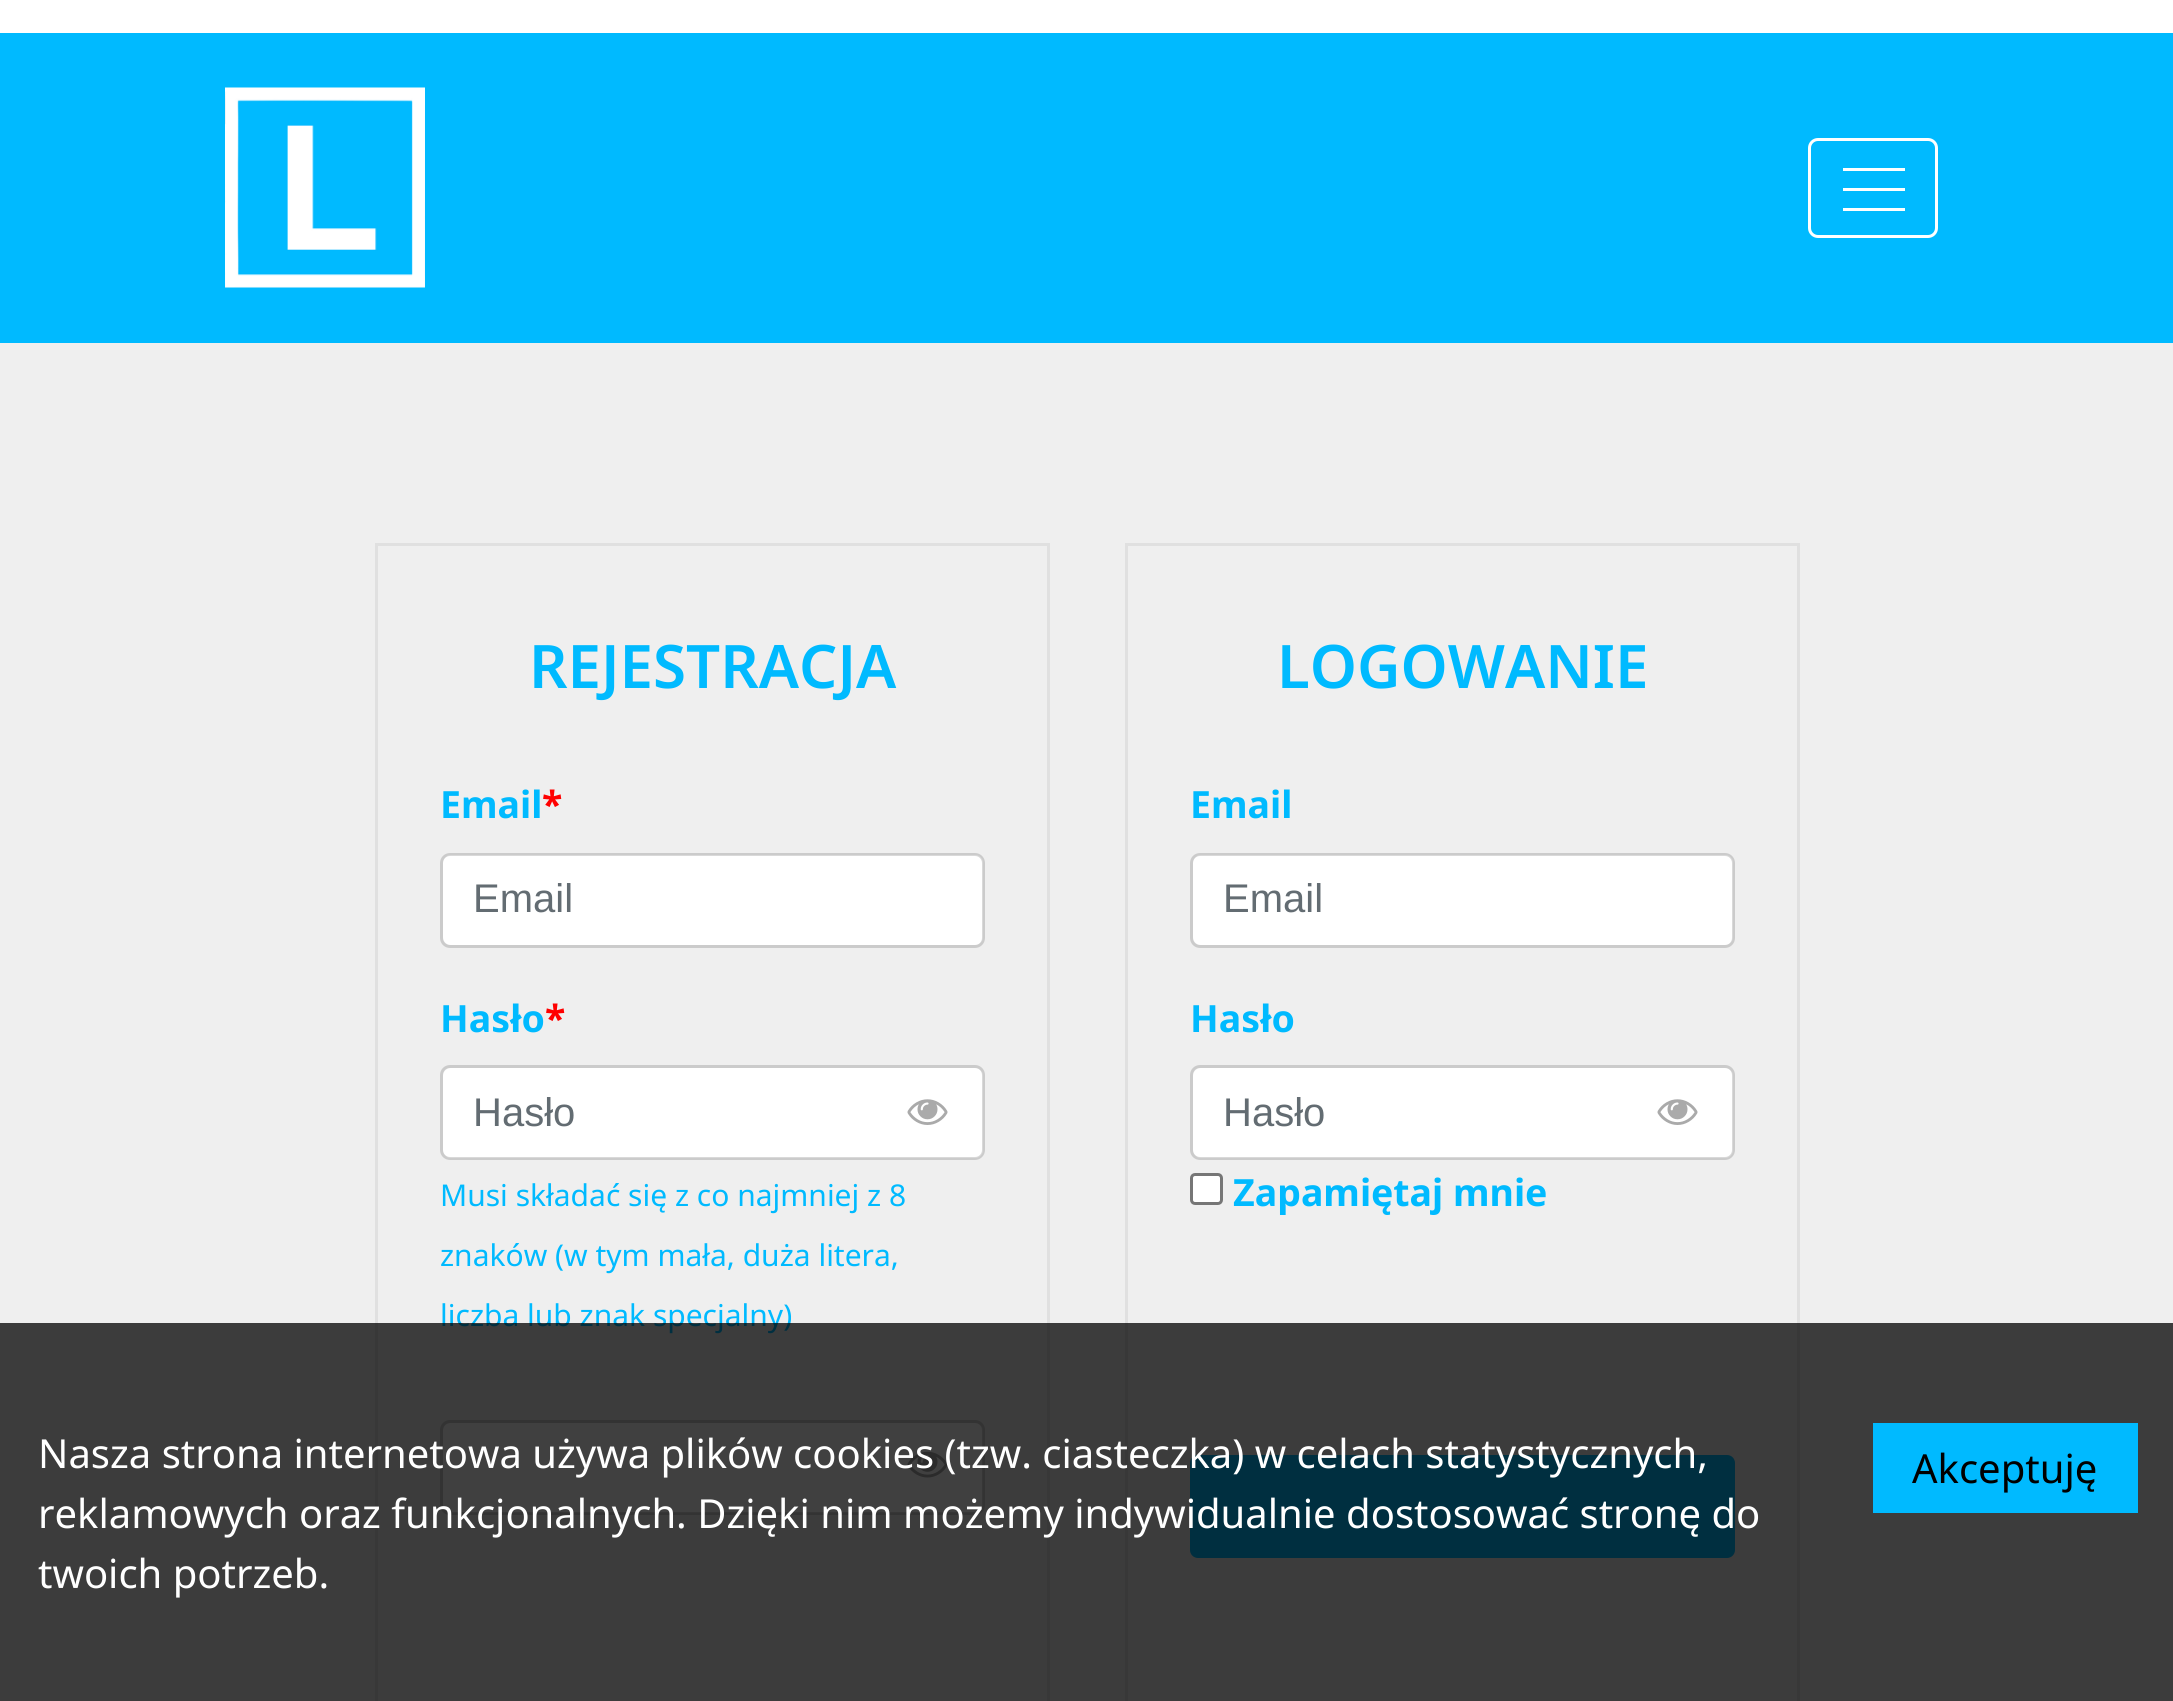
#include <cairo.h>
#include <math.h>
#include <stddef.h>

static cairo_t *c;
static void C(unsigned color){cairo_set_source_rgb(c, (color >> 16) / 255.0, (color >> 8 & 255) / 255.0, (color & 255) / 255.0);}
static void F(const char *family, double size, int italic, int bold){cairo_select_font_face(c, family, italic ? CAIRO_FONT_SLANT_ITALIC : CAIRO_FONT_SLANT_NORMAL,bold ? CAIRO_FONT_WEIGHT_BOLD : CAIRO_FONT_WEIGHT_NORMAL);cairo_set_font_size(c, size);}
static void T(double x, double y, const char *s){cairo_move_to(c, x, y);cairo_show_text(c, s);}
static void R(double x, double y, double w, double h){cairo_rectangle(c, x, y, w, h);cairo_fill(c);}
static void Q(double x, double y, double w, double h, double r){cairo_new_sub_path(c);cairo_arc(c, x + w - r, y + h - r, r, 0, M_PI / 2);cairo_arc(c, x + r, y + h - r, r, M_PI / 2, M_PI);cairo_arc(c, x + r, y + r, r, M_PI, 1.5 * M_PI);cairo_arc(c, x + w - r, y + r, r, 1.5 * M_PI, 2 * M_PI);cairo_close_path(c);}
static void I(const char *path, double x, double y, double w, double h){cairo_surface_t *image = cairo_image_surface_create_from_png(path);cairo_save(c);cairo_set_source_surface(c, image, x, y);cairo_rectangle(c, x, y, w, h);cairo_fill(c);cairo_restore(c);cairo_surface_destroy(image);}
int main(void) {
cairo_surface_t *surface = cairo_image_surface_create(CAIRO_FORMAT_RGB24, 2173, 1701);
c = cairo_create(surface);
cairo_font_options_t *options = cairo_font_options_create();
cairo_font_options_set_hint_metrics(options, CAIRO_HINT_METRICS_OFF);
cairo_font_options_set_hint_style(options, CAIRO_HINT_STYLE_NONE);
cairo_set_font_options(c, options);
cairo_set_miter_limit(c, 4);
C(0xffffff);
cairo_paint(c);
C(0x00baff);
R(0,33,2173,310);
I("1.png",225,87,200,201);
Q(1809.5,139.5,127,97,8.5);
C(0xffffff);
cairo_set_line_width(c,3);
cairo_stroke(c);
R(1843,168,62,3);
R(1843,188,62,3);
R(1843,208,62,3);
C(0xefefef);
R(0,343,2173,1358);
cairo_rectangle(c,376.5,544.5,672,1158);
C(0xe0e0e0);
cairo_stroke(c);
F("Noto Sans SemiBold",60,0,0);
C(0x00baff);
T(529,688,"REJESTRACJA");
F("Noto Sans",37.5,0,1);
T(440,818,"Email");
C(0xff0000);
T(542,818,"*");
C(0xffffff);
Q(443,855,540,90,8);
cairo_fill(c);
Q(441.5,854.5,542,92,8.5);
cairo_set_source_rgba(c,0,0,0,0.15);
cairo_stroke(c);
F("Liberation Sans",40,0,0);
C(0x636c72);
T(473,912,"Email");
F("Noto Sans",37.5,0,1);
C(0x00baff);
T(440,1032,"Hasło");
C(0xff0000);
T(545,1032,"*");
C(0xffffff);
Q(443,1068,540,90,8);
cairo_fill(c);
Q(441.5,1066.5,542,92,8.5);
cairo_set_source_rgba(c,0,0,0,0.15);
cairo_stroke(c);
F("Liberation Sans",40,0,0);
C(0x636c72);
T(473,1126,"Hasło");
I("2.png",907,1099,41,26);
F("Noto Sans",30,0,0);
C(0x00baff);
T(440,1206,"Musi składać się z co najmniej z 8");
T(440,1266,"znaków (w tym mała, duża litera,");
T(440,1326,"liczba lub znak specjalny)");
C(0xffffff);
Q(443,1423,540,90,8);
cairo_fill(c);
Q(441.5,1421.5,542,92,8.5);
cairo_set_source_rgba(c,0,0,0,0.15);
cairo_stroke(c);
I("3.png",907,1451,41,27);
cairo_rectangle(c,1126.5,544.5,672,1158);
C(0xe0e0e0);
cairo_stroke(c);
F("Noto Sans SemiBold",60,0,0);
C(0x00baff);
T(1277,688,"LOGOWANIE");
F("Noto Sans",37.5,0,1);
T(1190,818,"Email");
C(0xffffff);
Q(1193,855,540,90,8);
cairo_fill(c);
Q(1191.5,854.5,542,92,8.5);
cairo_set_source_rgba(c,0,0,0,0.15);
cairo_stroke(c);
F("Liberation Sans",40,0,0);
C(0x636c72);
T(1223,912,"Email");
F("Noto Sans",37.5,0,1);
C(0x00baff);
T(1190,1032,"Hasło");
C(0xffffff);
Q(1193,1068,540,90,8);
cairo_fill(c);
Q(1191.5,1066.5,542,92,8.5);
cairo_set_source_rgba(c,0,0,0,0.15);
cairo_stroke(c);
F("Liberation Sans",40,0,0);
C(0x636c72);
T(1223,1126,"Hasło");
I("2.png",1657,1099,41,26);
C(0xffffff);
Q(1191.5,1174.5,30,29,3.5);
cairo_fill_preserve(c);
C(0x767676);
cairo_stroke(c);
F("Noto Sans",37.5,0,1);
C(0x00baff);
T(1233,1206,"Zapamiętaj mnie");
Q(1190,1455,545,103,8);
cairo_fill(c);
cairo_set_source_rgba(c,0,0,0,0.75);
R(0,1323,2173,378);
F("Noto Sans",40,0,0);
C(0xffffff);
T(38,1468,"Nasza strona internetowa używa plików cookies (tzw. ciasteczka) w celach statystycznych,");
T(38,1528,"reklamowych oraz funkcjonalnych. Dzięki nim możemy indywidualnie dostosować stronę do");
T(38,1588,"twoich potrzeb.");
C(0x00baff);
R(1873,1423,265,90);
C(0x000000);
T(1912,1483,"Akceptuję");
cairo_surface_write_to_png(surface, "o.png");
cairo_font_options_destroy(options);
cairo_destroy(c);
cairo_surface_destroy(surface);
return 0;
}
